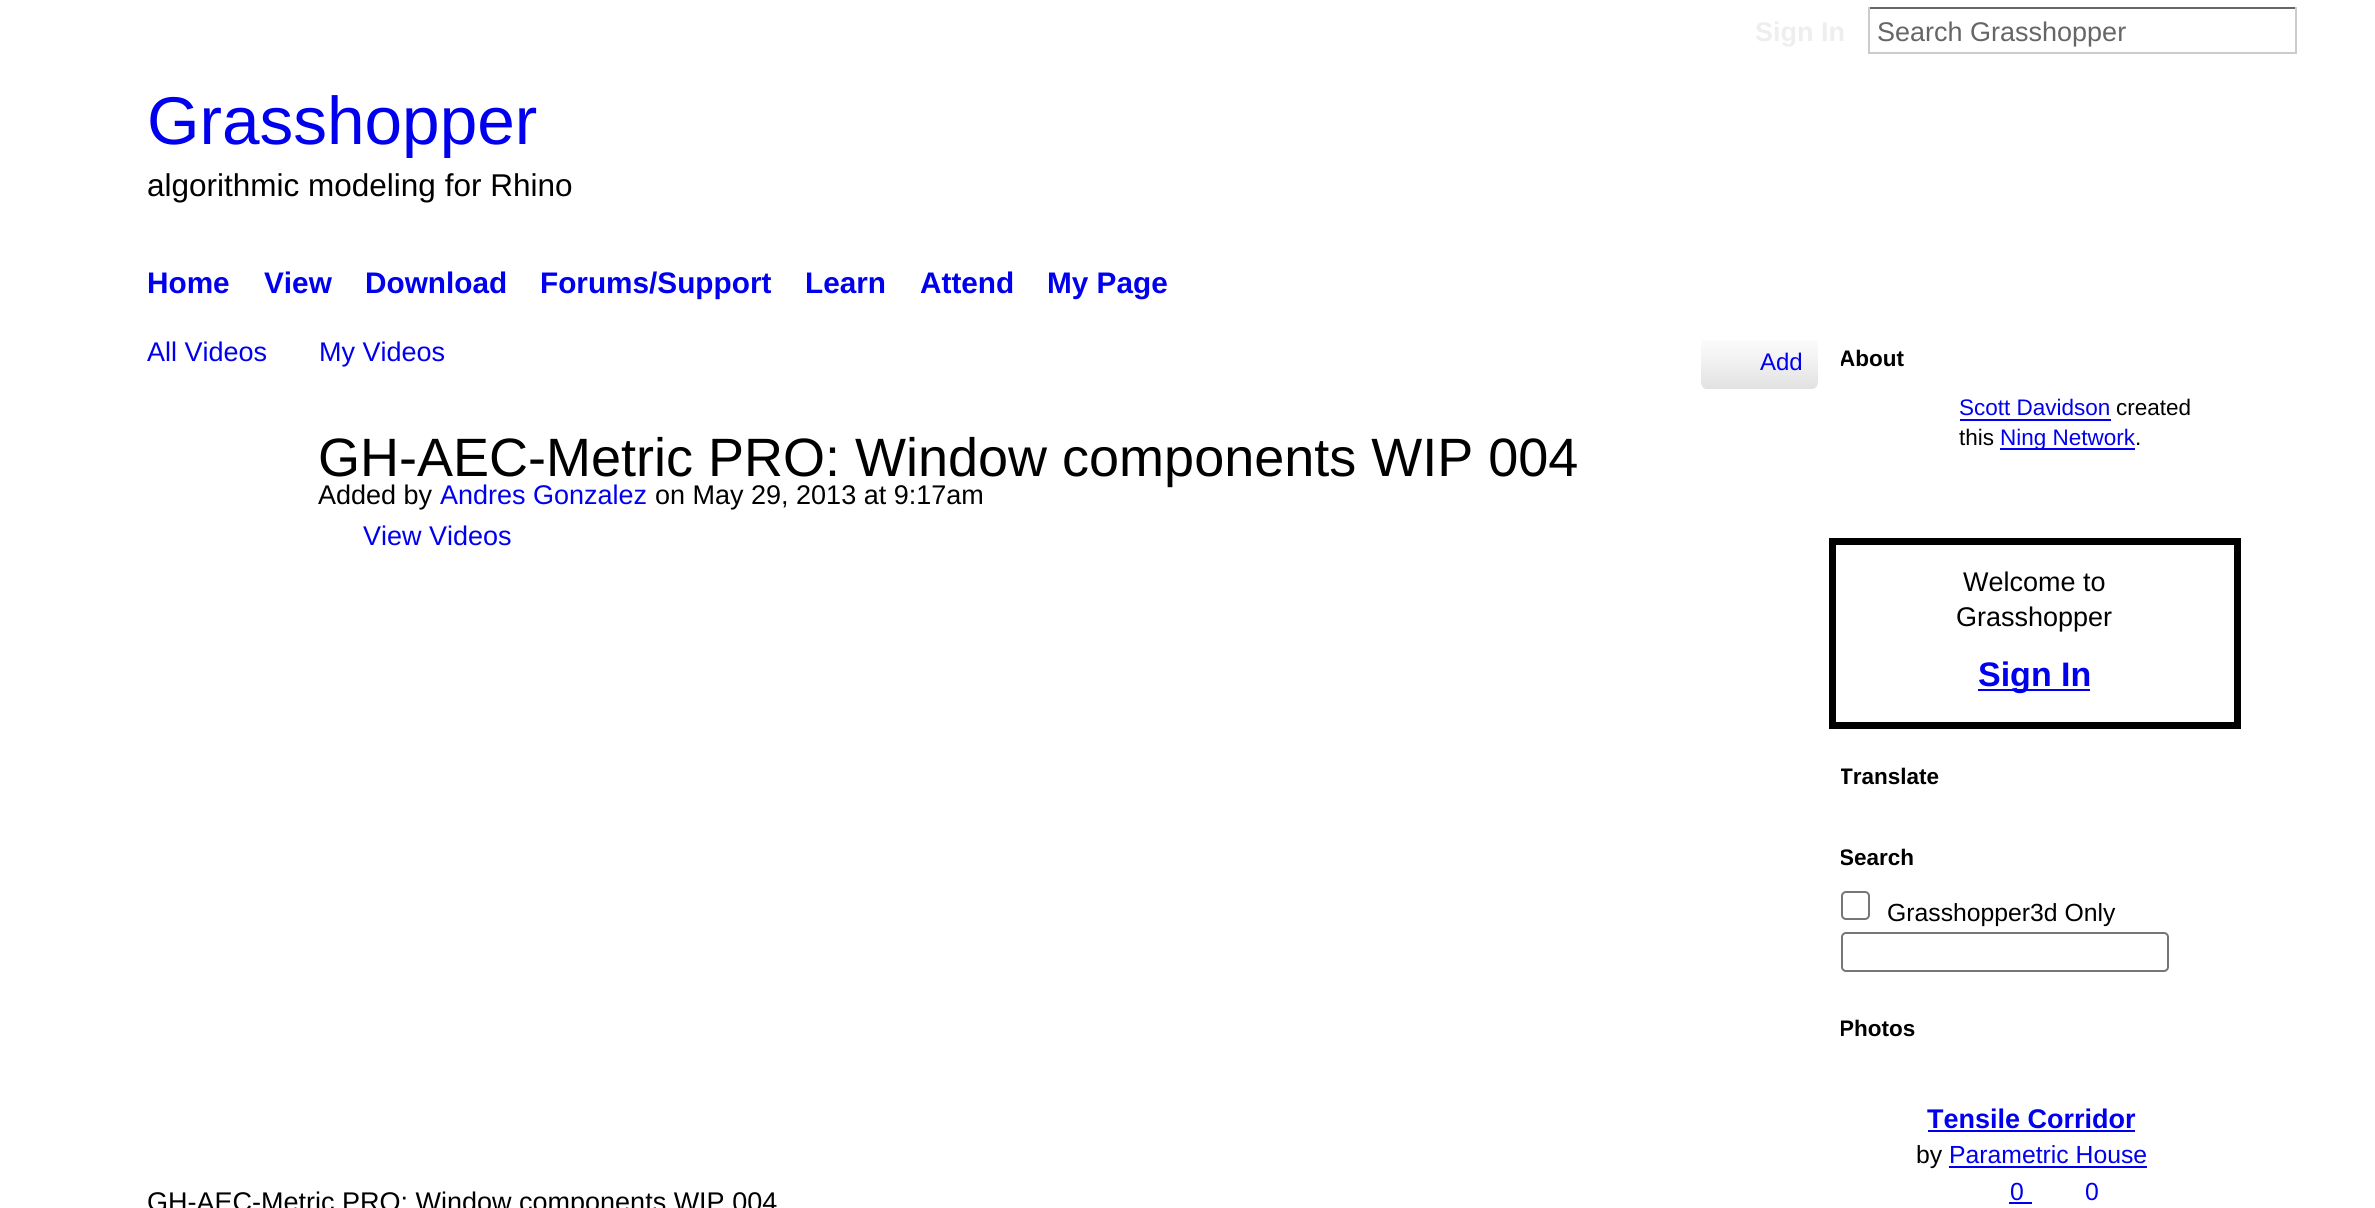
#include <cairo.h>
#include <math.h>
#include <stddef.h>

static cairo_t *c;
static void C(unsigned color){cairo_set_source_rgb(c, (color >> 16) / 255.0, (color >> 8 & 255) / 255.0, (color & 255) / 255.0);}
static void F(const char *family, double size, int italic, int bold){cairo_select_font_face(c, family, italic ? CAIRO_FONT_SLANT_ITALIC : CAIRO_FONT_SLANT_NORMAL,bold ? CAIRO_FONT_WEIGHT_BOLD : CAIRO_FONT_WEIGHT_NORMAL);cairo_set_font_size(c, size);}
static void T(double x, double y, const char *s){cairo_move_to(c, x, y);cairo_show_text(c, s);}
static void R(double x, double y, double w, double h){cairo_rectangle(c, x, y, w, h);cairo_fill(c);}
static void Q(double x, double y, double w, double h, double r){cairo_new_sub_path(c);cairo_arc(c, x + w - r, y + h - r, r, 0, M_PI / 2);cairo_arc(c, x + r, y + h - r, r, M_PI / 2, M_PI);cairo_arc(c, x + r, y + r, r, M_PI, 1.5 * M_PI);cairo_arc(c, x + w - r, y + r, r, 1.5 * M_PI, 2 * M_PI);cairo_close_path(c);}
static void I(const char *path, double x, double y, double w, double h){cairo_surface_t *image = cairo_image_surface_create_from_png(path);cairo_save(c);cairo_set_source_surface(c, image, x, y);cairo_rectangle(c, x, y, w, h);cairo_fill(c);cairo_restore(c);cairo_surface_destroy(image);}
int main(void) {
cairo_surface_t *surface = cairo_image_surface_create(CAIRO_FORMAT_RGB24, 2375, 1208);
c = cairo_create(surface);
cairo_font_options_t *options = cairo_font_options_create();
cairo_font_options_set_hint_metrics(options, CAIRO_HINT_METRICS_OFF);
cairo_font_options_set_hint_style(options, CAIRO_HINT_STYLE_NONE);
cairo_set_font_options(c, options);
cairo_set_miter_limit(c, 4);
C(0xffffff);
cairo_paint(c);
F("Liberation Sans",27,0,1);
C(0xeeeeee);
T(1755,41,"Sign In");
C(0x666666);
R(1868,7,429,2);
C(0xcccccc);
R(2295,7,2,47);
R(1868,52,429,2);
R(1868,7,2,47);
F("Liberation Sans",27,0,0);
C(0x666666);
T(1877,41,"Search Grasshopper");
F("Liberation Sans",67.5,0,0);
C(0x0000ee);
T(147,144,"Grasshopper");
F("Liberation Sans",31.5,0,0);
C(0x000000);
T(147,196,"algorithmic modeling for Rhino");
F("Liberation Sans",29.75,0,1);
C(0x0000ee);
T(147,293,"Home");
T(264,293,"View");
T(365,293,"Download");
T(540,293,"Forums/Support");
T(805,293,"Learn");
T(920,293,"Attend");
T(1047,293,"My Page");
F("Liberation Sans",27,0,0);
T(147,361,"All Videos");
T(319,361,"My Videos");
I("1.png",1701,340,117,49);
F("Liberation Sans",24,0,0);
T(1760,370,"Add");
F("Liberation Sans",54,0,0);
C(0x000000);
T(318,476,"GH-AEC-Metric PRO: Window components WIP 004");
F("Liberation Sans",27,0,0);
T(318,504,"Added by");
C(0x0000ee);
T(440,504,"Andres Gonzalez");
C(0x000000);
T(655,504,"on May 29, 2013 at 9:17am");
C(0x0000ee);
T(363,545,"View Videos");
C(0x000000);
T(147,1211,"GH-AEC-Metric PRO: Window components WIP 004");
cairo_save(c);
cairo_rectangle(c,1841,344,63,30);
cairo_clip(c);
F("Liberation Sans",22.5,0,1);
T(1839,366,"About");
cairo_restore(c);
F("Liberation Sans",22.5,0,0);
C(0x0000ee);
T(1959,415,"Scott Davidson");
R(1960,419,151,2);
C(0x000000);
T(2116,415,"created");
T(1959,445,"this");
C(0x0000ee);
R(2000,448,135,2);
T(2000,445,"Ning Network");
C(0x000000);
T(2135,445,".");
cairo_rectangle(c,1832.5,541.5,405,184);
cairo_set_line_width(c,7);
cairo_stroke(c);
F("Liberation Sans",27,0,0);
T(1963,591,"Welcome to");
T(1956,626,"Grasshopper");
C(0x0000ee);
R(1978,689,112,2);
F("Liberation Sans",34,0,1);
T(1978,686,"Sign In");
cairo_save(c);
cairo_rectangle(c,1841,761,99,29);
cairo_clip(c);
F("Liberation Sans",22.5,0,1);
C(0x000000);
T(1839,784,"Translate");
cairo_restore(c);
cairo_save(c);
cairo_rectangle(c,1841,842,74,29);
cairo_clip(c);
F("Liberation Sans",22.5,0,1);
C(0x000000);
T(1839,865,"Search");
cairo_restore(c);
Q(1842,892,27,27,4);
C(0x767676);
cairo_set_line_width(c,2);
cairo_stroke(c);
F("Liberation Sans",24.75,0,0);
C(0x000000);
T(1887,921,"Grasshopper3d Only");
Q(1842,933,326,38,4);
C(0x767676);
cairo_stroke(c);
cairo_save(c);
cairo_rectangle(c,1841,1013,74,29);
cairo_clip(c);
F("Liberation Sans",22.5,0,1);
C(0x000000);
T(1839,1036,"Photos");
cairo_restore(c);
F("Liberation Sans",27,0,1);
C(0x0000ee);
T(1927,1128,"Tensile Corridor");
R(1928,1130,207,2);
F("Liberation Sans",24.75,0,0);
C(0x000000);
T(1916,1163,"by");
C(0x0000ee);
T(1949,1163,"Parametric House");
R(1949,1166,198,2);
T(2010,1200,"0");
R(2009,1202,23,2);
T(2085,1200,"0");
cairo_surface_write_to_png(surface, "o.png");
cairo_font_options_destroy(options);
cairo_destroy(c);
cairo_surface_destroy(surface);
return 0;
}
